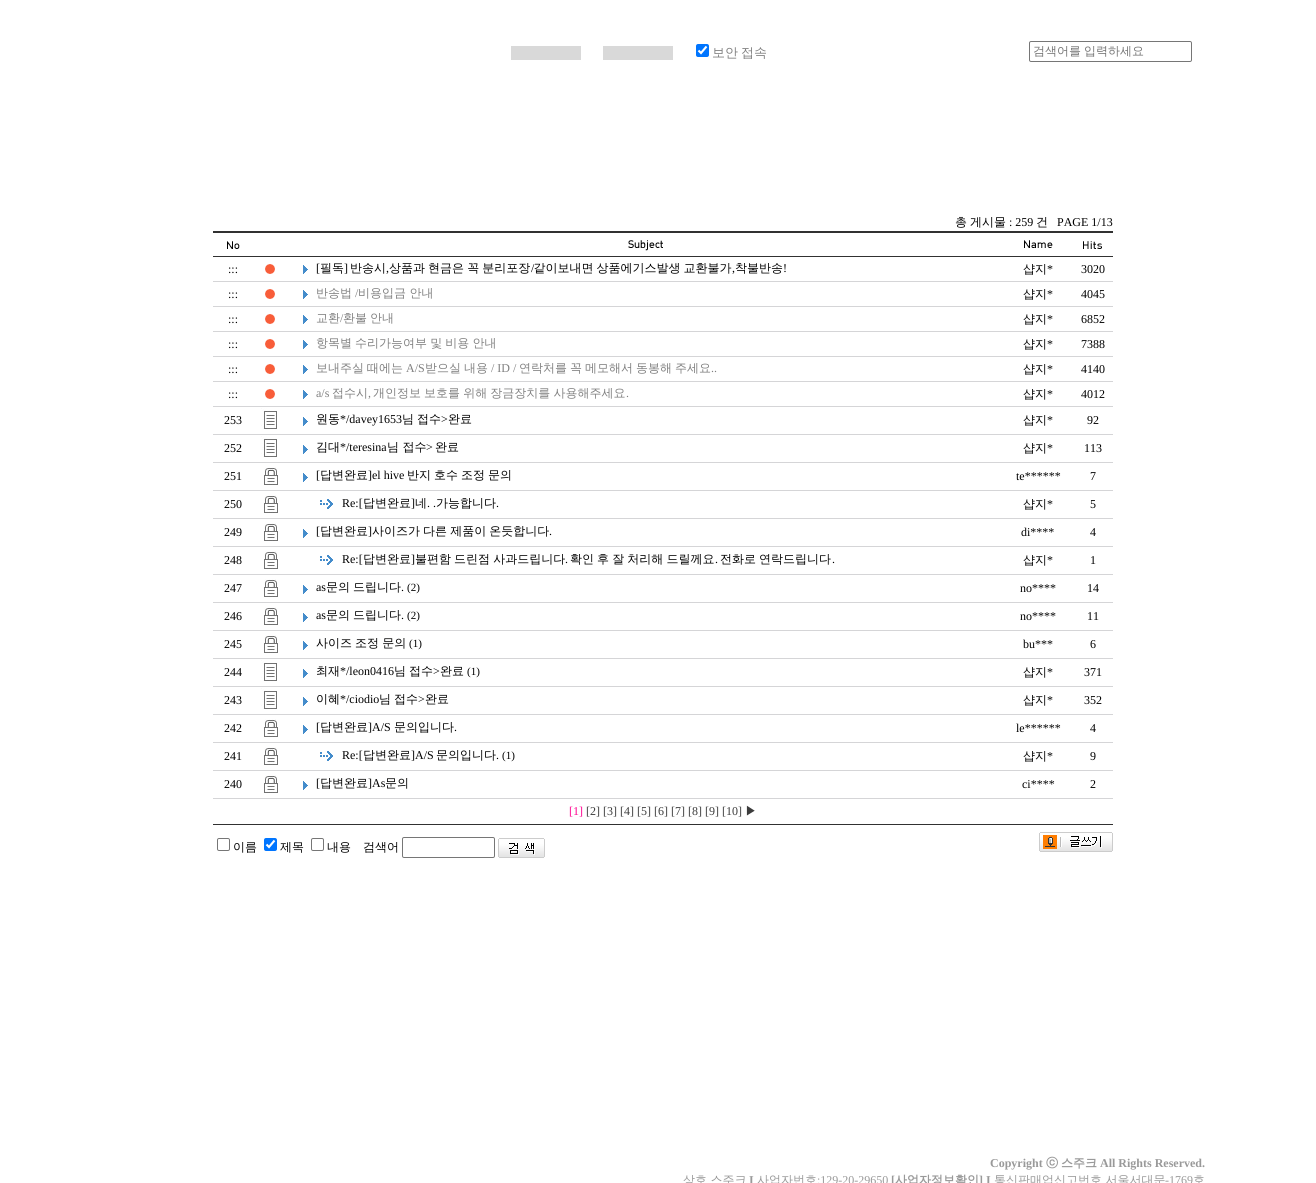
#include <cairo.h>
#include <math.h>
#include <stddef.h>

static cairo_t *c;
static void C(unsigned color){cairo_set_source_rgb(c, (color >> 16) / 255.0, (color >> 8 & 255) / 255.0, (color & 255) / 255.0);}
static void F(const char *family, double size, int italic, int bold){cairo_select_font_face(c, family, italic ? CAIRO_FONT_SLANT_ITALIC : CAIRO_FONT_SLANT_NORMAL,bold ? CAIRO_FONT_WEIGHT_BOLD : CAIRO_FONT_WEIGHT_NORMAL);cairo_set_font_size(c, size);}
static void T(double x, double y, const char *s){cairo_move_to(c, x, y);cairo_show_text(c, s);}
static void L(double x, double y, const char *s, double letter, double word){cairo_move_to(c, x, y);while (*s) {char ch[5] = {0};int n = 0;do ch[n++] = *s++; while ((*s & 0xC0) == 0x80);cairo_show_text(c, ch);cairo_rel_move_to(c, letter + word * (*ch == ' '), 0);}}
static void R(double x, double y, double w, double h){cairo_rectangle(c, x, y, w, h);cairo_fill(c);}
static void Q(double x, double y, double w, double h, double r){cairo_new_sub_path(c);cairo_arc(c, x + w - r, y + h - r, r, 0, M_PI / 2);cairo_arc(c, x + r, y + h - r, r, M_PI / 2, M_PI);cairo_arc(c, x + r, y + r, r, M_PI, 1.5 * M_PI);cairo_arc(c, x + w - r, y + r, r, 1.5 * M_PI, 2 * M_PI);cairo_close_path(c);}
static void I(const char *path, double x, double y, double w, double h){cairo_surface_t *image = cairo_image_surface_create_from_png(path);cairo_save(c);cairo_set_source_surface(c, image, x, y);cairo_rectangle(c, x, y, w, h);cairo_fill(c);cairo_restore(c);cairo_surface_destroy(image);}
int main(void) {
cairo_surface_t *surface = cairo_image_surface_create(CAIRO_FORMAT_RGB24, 1316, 1183);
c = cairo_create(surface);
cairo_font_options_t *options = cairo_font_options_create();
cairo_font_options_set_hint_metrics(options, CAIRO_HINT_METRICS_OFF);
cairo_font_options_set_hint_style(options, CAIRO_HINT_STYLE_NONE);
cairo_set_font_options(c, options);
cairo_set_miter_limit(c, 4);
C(0xffffff);
cairo_paint(c);
C(0xd9d9d9);
R(511,46,70,14);
R(603,46,70,14);
C(0x0075ff);
Q(696,44,13,13,2);
cairo_fill(c);
cairo_new_path(c);
cairo_move_to(c,698.5,50.5);
cairo_line_to(c,701,53);
cairo_line_to(c,706.5,46.5);
C(0xffffff);
cairo_set_line_width(c,2.1);
cairo_stroke(c);
F("WenQuanYi Zen Hei Medium",13,0,0);
C(0x808080);
L(712,57,"보안 접속",0,-1);
Q(1029.5,41.5,162,20,1.5);
C(0x767676);
cairo_set_line_width(c,1);
cairo_stroke(c);
F("WenQuanYi Zen Hei Medium",12,0,0);
C(0x757575);
L(1033,55,"검색어를 입력하세요",0,-.5);
C(0x000000);
T(955,226,"총");
T(970,226,"게시물");
F("Liberation Serif",12,0,0);
T(1009,226,": 259");
F("WenQuanYi Zen Hei Medium",12,0,0);
T(1036,226,"건");
F("Liberation Serif",12,0,0);
T(1057,226,"PAGE 1/13");
C(0x313131);
R(213,231,900,2);
I("1.png",227,241,13,8);
I("2.png",628,240,35,11);
I("3.png",1024,240,29,8);
I("4.png",1083,241,19,8);
R(213,256,900,1);
C(0x000000);
T(228,273,":::");
I("5.png",265,264,10,10);
T(316,272,"[");
F("WenQuanYi Zen Hei Medium",12,0,0);
T(320,272,"필독");
F("Liberation Serif",12,0,0);
T(344,272,"]");
F("WenQuanYi Zen Hei Medium",12,0,0);
T(350,272,"반송시");
L(389,272,"상품과 현금은 꼭 분리포장 같이보내면 상품에기스발생 교환불가",0,-.5);
T(735,272,"착불반송");
I("6.png",303,265,5,9);
F("Liberation Serif",12,0,0);
T(386,272,",");
T(531,272,"/");
T(732,272,",");
T(783,272,"!");
F("WenQuanYi Zen Hei Medium",12,0,0);
T(1023,273,"샵지");
F("Liberation Serif",12,0,0);
T(1047,273,"*");
T(1081,273,"3020");
C(0xd5d5d7);
R(213,281,900,1);
C(0x000000);
T(228,298,":::");
I("5.png",265,289,10,10);
I("6.png",303,290,5,9);
F("WenQuanYi Zen Hei Medium",12,0,0);
C(0x808080);
T(316,297,"반송법");
F("Liberation Serif",12,0,0);
T(355,297,"/");
F("WenQuanYi Zen Hei Medium",12,0,0);
T(358,297,"비용입금 안내");
C(0x000000);
T(1023,298,"샵지");
F("Liberation Serif",12,0,0);
T(1047,298,"*");
T(1081,298,"4045");
C(0xd5d5d7);
R(213,306,900,1);
C(0x000000);
T(228,323,":::");
I("5.png",265,314,10,10);
I("6.png",303,315,5,9);
F("WenQuanYi Zen Hei Medium",12,0,0);
C(0x808080);
T(316,322,"교환");
F("Liberation Serif",12,0,0);
T(340,322,"/");
F("WenQuanYi Zen Hei Medium",12,0,0);
L(343,322,"환불 안내",0,-.5);
C(0x000000);
T(1023,323,"샵지");
F("Liberation Serif",12,0,0);
T(1047,323,"*");
T(1081,323,"6852");
C(0xd5d5d7);
R(213,331,900,1);
C(0x000000);
T(228,348,":::");
I("5.png",265,339,10,10);
I("6.png",303,340,5,9);
F("WenQuanYi Zen Hei Medium",12,0,0);
C(0x808080);
L(316,347,"항목별 수리가능여부 및 비용 안내",0,-.5);
C(0x000000);
T(1023,348,"샵지");
F("Liberation Serif",12,0,0);
T(1047,348,"*");
T(1081,348,"7388");
C(0xd5d5d7);
R(213,356,900,1);
C(0x000000);
T(228,373,":::");
I("5.png",265,364,10,10);
I("6.png",303,365,5,9);
F("WenQuanYi Zen Hei Medium",12,0,0);
C(0x808080);
T(316,372,"보내주실");
T(367,372,"때에는");
F("Liberation Serif",12,0,0);
T(406,372,"A/S");
F("WenQuanYi Zen Hei Medium",12,0,0);
T(425,372,"받으실");
T(464,372,"내용");
F("Liberation Serif",12,0,0);
T(491,372,"/ ID /");
F("WenQuanYi Zen Hei Medium",12,0,0);
T(519,372,"연락처를");
T(570,372,"꼭");
T(585,372,"메모해서");
T(636,372,"동봉해");
T(675,372,"주세요");
F("Liberation Serif",12,0,0);
T(711,372,"..");
F("WenQuanYi Zen Hei Medium",12,0,0);
C(0x000000);
T(1023,373,"샵지");
F("Liberation Serif",12,0,0);
T(1047,373,"*");
T(1081,373,"4140");
C(0xd5d5d7);
R(213,381,900,1);
C(0x000000);
T(228,398,":::");
I("5.png",265,389,10,10);
I("6.png",303,390,5,9);
C(0x808080);
T(316,397,"a/s");
F("WenQuanYi Zen Hei Medium",12,0,0);
T(332,397,"접수시");
F("Liberation Serif",12,0,0);
T(368,397,",");
F("WenQuanYi Zen Hei Medium",12,0,0);
L(373,397,"개인정보 보호를 위해 장금장치를 사용해주세요",0,-.5);
F("Liberation Serif",12,0,0);
T(626,397,".");
F("WenQuanYi Zen Hei Medium",12,0,0);
C(0x000000);
T(1023,398,"샵지");
F("Liberation Serif",12,0,0);
T(1047,398,"*");
T(1081,398,"4012");
C(0xd5d5d7);
R(213,406,900,1);
C(0x000000);
T(224,424,"253");
I("7.png",261,408,16,21);
I("6.png",303,417,5,9);
F("WenQuanYi Zen Hei Medium",12,0,0);
T(316,423,"원동");
F("Liberation Serif",12,0,0);
T(340,423,"*/davey1653");
F("WenQuanYi Zen Hei Medium",12,0,0);
L(402,423,"님 접수",0,-.5);
F("Liberation Serif",12,0,0);
T(441,423,">");
F("WenQuanYi Zen Hei Medium",12,0,0);
T(448,423,"완료");
T(1023,424,"샵지");
F("Liberation Serif",12,0,0);
T(1047,424,"*");
T(1087,424,"92");
C(0xd5d5d7);
R(213,434,900,1);
C(0x000000);
T(224,452,"252");
I("7.png",261,436,16,21);
I("6.png",303,445,5,9);
F("WenQuanYi Zen Hei Medium",12,0,0);
T(316,451,"김대");
F("Liberation Serif",12,0,0);
T(340,451,"*/teresina");
F("WenQuanYi Zen Hei Medium",12,0,0);
T(387,451,"님 접수");
F("Liberation Serif",12,0,0);
T(426,451,">");
F("WenQuanYi Zen Hei Medium",12,0,0);
T(435,451,"완료");
T(1023,452,"샵지");
F("Liberation Serif",12,0,0);
T(1047,452,"*");
T(1084,452,"113");
C(0xd5d5d7);
R(213,462,900,1);
C(0x000000);
T(224,480,"251");
I("8.png",264,467,14,18);
I("6.png",303,473,5,9);
T(316,479,"[");
F("WenQuanYi Zen Hei Medium",12,0,0);
T(320,479,"답변완료");
F("Liberation Serif",12,0,0);
T(368,479,"]el hive");
F("WenQuanYi Zen Hei Medium",12,0,0);
T(407,479,"반지");
T(434,479,"호수");
T(461,479,"조정");
T(488,479,"문의");
F("Liberation Serif",12,0,0);
T(1016,480,"te******");
T(1090,480,"7");
C(0xd5d5d7);
R(213,490,900,1);
C(0x000000);
T(224,508,"250");
I("8.png",264,495,14,18);
I("9.png",320,499,13,10);
T(342,507,"Re:[");
F("WenQuanYi Zen Hei Medium",12,0,0);
T(363,507,"답변완료");
F("Liberation Serif",12,0,0);
T(411,507,"]");
F("WenQuanYi Zen Hei Medium",12,0,0);
T(415,507,"네");
F("Liberation Serif",12,0,0);
T(427,507,". .");
F("WenQuanYi Zen Hei Medium",12,0,0);
T(436,507,"가능합니다");
F("Liberation Serif",12,0,0);
T(496,507,".");
F("WenQuanYi Zen Hei Medium",12,0,0);
T(1023,508,"샵지");
F("Liberation Serif",12,0,0);
T(1047,508,"*");
T(1090,508,"5");
C(0xd5d5d7);
R(213,518,900,1);
C(0x000000);
T(224,536,"249");
I("8.png",264,523,14,18);
I("6.png",303,529,5,9);
T(316,535,"[");
F("WenQuanYi Zen Hei Medium",12,0,0);
T(320,535,"답변완료");
F("Liberation Serif",12,0,0);
T(368,535,"]");
F("WenQuanYi Zen Hei Medium",12,0,0);
L(372,535,"사이즈가 다른 제품이 온듯합니다",0,-.5);
F("Liberation Serif",12,0,0);
T(549,535,".");
T(1021,536,"di****");
T(1090,536,"4");
C(0xd5d5d7);
R(213,546,900,1);
C(0x000000);
T(224,564,"248");
I("8.png",264,551,14,18);
I("9.png",320,555,13,10);
T(342,563,"Re:[");
F("WenQuanYi Zen Hei Medium",12,0,0);
T(363,563,"답변완료");
F("Liberation Serif",12,0,0);
T(411,563,"]");
F("WenQuanYi Zen Hei Medium",12,0,0);
L(415,563,"불편함 드린점 사과드립니다",0,-.5);
F("Liberation Serif",12,0,0);
T(565,563,".");
F("WenQuanYi Zen Hei Medium",12,0,0);
L(570,563,"확인 후 잘 처리해 드릴께요",0,-.5);
F("Liberation Serif",12,0,0);
T(715,563,".");
F("WenQuanYi Zen Hei Medium",12,0,0);
L(720,563,"전화로 연락드립니다",0,-.5);
F("Liberation Serif",12,0,0);
T(832,563,".");
F("WenQuanYi Zen Hei Medium",12,0,0);
T(1023,564,"샵지");
F("Liberation Serif",12,0,0);
T(1047,564,"*");
T(1090,564,"1");
C(0xd5d5d7);
R(213,574,900,1);
C(0x000000);
T(224,592,"247");
I("8.png",264,579,14,18);
I("6.png",303,585,5,9);
T(316,591,"as");
F("WenQuanYi Zen Hei Medium",12,0,0);
L(326,591,"문의 드립니다",0,-.5);
F("Liberation Serif",12,0,0);
T(401,591,".");
F("Liberation Serif",11,0,0);
T(407,591,"(2)");
F("Liberation Serif",12,0,0);
T(1020,592,"no****");
T(1087,592,"14");
C(0xd5d5d7);
R(213,602,900,1);
C(0x000000);
T(224,620,"246");
I("8.png",264,607,14,18);
I("6.png",303,613,5,9);
T(316,619,"as");
F("WenQuanYi Zen Hei Medium",12,0,0);
L(326,619,"문의 드립니다",0,-.5);
F("Liberation Serif",12,0,0);
T(401,619,".");
F("Liberation Serif",11,0,0);
T(407,619,"(2)");
F("Liberation Serif",12,0,0);
T(1020,620,"no****");
T(1087,620,"11");
C(0xd5d5d7);
R(213,630,900,1);
C(0x000000);
T(224,648,"245");
I("8.png",264,635,14,18);
I("6.png",303,641,5,9);
F("WenQuanYi Zen Hei Medium",12,0,0);
L(316,647,"사이즈 조정 문의",0,-.5);
F("Liberation Serif",11,0,0);
T(409,647,"(1)");
F("Liberation Serif",12,0,0);
T(1023,648,"bu***");
T(1090,648,"6");
C(0xd5d5d7);
R(213,658,900,1);
C(0x000000);
T(224,676,"244");
I("7.png",261,660,16,21);
I("6.png",303,669,5,9);
F("WenQuanYi Zen Hei Medium",12,0,0);
T(316,675,"최재");
F("Liberation Serif",12,0,0);
T(340,675,"*/leon0416");
F("WenQuanYi Zen Hei Medium",12,0,0);
L(394,675,"님 접수",0,-.5);
F("Liberation Serif",12,0,0);
T(433,675,">");
F("WenQuanYi Zen Hei Medium",12,0,0);
T(440,675,"완료");
F("Liberation Serif",11,0,0);
T(467,675,"(1)");
F("WenQuanYi Zen Hei Medium",12,0,0);
T(1023,676,"샵지");
F("Liberation Serif",12,0,0);
T(1047,676,"*");
T(1084,676,"371");
C(0xd5d5d7);
R(213,686,900,1);
C(0x000000);
T(224,704,"243");
I("7.png",261,688,16,21);
I("6.png",303,697,5,9);
F("WenQuanYi Zen Hei Medium",12,0,0);
T(316,703,"이혜");
F("Liberation Serif",12,0,0);
T(340,703,"*/ciodio");
F("WenQuanYi Zen Hei Medium",12,0,0);
L(379,703,"님 접수",0,-.5);
F("Liberation Serif",12,0,0);
T(418,703,">");
F("WenQuanYi Zen Hei Medium",12,0,0);
T(425,703,"완료");
T(1023,704,"샵지");
F("Liberation Serif",12,0,0);
T(1047,704,"*");
T(1084,704,"352");
C(0xd5d5d7);
R(213,714,900,1);
C(0x000000);
T(224,732,"242");
I("8.png",264,719,14,18);
I("6.png",303,725,5,9);
T(316,731,"[");
F("WenQuanYi Zen Hei Medium",12,0,0);
T(320,731,"답변완료");
F("Liberation Serif",12,0,0);
T(368,731,"]A/S");
F("WenQuanYi Zen Hei Medium",12,0,0);
T(394,731,"문의입니다");
F("Liberation Serif",12,0,0);
T(454,731,".");
T(1016,732,"le******");
T(1090,732,"4");
C(0xd5d5d7);
R(213,742,900,1);
C(0x000000);
T(224,760,"241");
I("8.png",264,747,14,18);
I("9.png",320,751,13,10);
T(342,759,"Re:[");
F("WenQuanYi Zen Hei Medium",12,0,0);
T(363,759,"답변완료");
F("Liberation Serif",12,0,0);
T(411,759,"]A/S");
F("WenQuanYi Zen Hei Medium",12,0,0);
T(436,759,"문의입니다");
F("Liberation Serif",12,0,0);
T(496,759,".");
F("Liberation Serif",11,0,0);
T(502,759,"(1)");
F("WenQuanYi Zen Hei Medium",12,0,0);
T(1023,760,"샵지");
F("Liberation Serif",12,0,0);
T(1047,760,"*");
T(1090,760,"9");
C(0xd5d5d7);
R(213,770,900,1);
C(0x000000);
T(224,788,"240");
I("8.png",264,775,14,18);
I("6.png",303,781,5,9);
T(316,787,"[");
F("WenQuanYi Zen Hei Medium",12,0,0);
T(320,787,"답변완료");
F("Liberation Serif",12,0,0);
T(368,787,"]As");
F("WenQuanYi Zen Hei Medium",12,0,0);
T(385,787,"문의");
F("Liberation Serif",12,0,0);
T(1022,788,"ci****");
T(1090,788,"2");
C(0xd5d5d7);
R(213,798,900,1);
C(0xff0390);
T(569,815,"[1]");
C(0x3c3c3c);
T(586,815,"[2] [3] [4] [5] [6] [7] [8] [9] [10]");
F("WenQuanYi Zen Hei Medium",12,0,0);
T(745,815,"▶");
C(0x313131);
R(213,824,900,1);
Q(217.5,838.5,12,12,1.5);
C(0x767676);
cairo_stroke(c);
C(0x000000);
T(233,851,"이름");
C(0x0075ff);
Q(264,838,13,13,2);
cairo_fill(c);
cairo_new_path(c);
cairo_move_to(c,266.5,844.5);
cairo_line_to(c,269,847);
cairo_line_to(c,274.5,840.5);
C(0xffffff);
cairo_set_line_width(c,2.1);
cairo_stroke(c);
C(0x000000);
T(280,851,"제목");
Q(311.5,838.5,12,12,1.5);
C(0x767676);
cairo_set_line_width(c,1);
cairo_stroke(c);
C(0x000000);
T(327,851,"내용");
T(363,851,"검색어");
Q(402.5,837.5,92,20,1.5);
C(0x767676);
cairo_stroke(c);
I("10.png",498,838,47,20);
I("11.png",1039,832,74,20);
F("Liberation Serif",12,0,1);
C(0x999999);
T(990,1167,"Copyright");
F("WenQuanYi Zen Hei",12,0,1);
T(1046,1167,"ⓒ");
T(1061,1167,"스주크");
F("Liberation Serif",12,0,1);
T(1100,1167,"All Rights Reserved.");
F("WenQuanYi Zen Hei Medium",12,0,0);
T(683,1184,"상호 스주크");
F("Liberation Serif",12,0,1);
T(749,1184,"I");
F("WenQuanYi Zen Hei Medium",12,0,0);
T(757,1184,"사업자번호");
F("Liberation Serif",12,0,0);
T(817,1184,":129-20-29650");
F("Liberation Serif",12,0,1);
T(891,1184,"[");
F("WenQuanYi Zen Hei",12,0,1);
T(895,1184,"사업자정보확인");
F("Liberation Serif",12,0,1);
T(979,1184,"] I");
F("WenQuanYi Zen Hei Medium",12,0,0);
T(994,1184,"통신판매업신고번호 서울서대문");
F("Liberation Serif",12,0,0);
T(1165,1184,"-1769");
F("WenQuanYi Zen Hei Medium",12,0,0);
T(1193,1184,"호");
cairo_surface_write_to_png(surface, "o.png");
cairo_font_options_destroy(options);
cairo_destroy(c);
cairo_surface_destroy(surface);
return 0;
}
